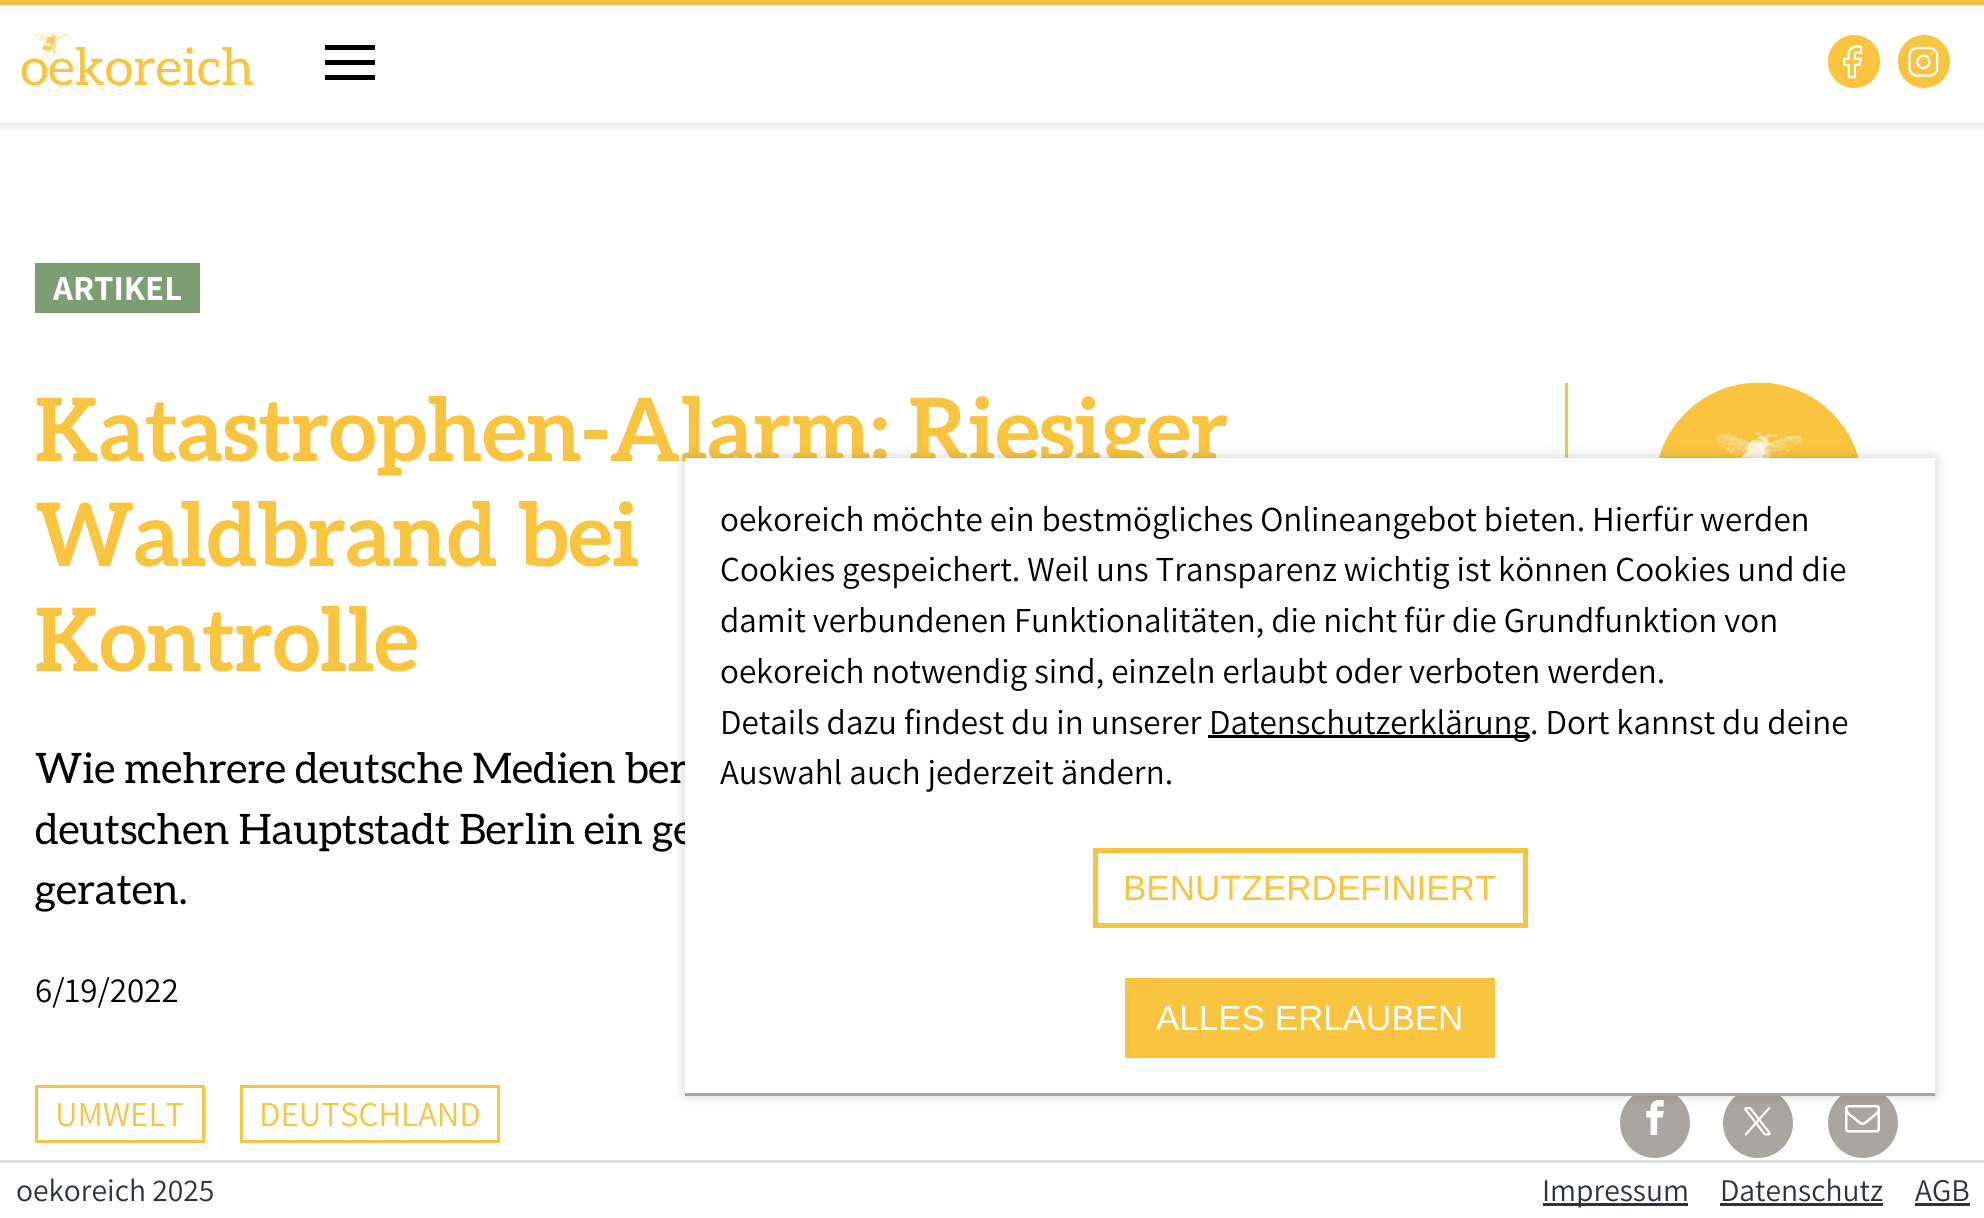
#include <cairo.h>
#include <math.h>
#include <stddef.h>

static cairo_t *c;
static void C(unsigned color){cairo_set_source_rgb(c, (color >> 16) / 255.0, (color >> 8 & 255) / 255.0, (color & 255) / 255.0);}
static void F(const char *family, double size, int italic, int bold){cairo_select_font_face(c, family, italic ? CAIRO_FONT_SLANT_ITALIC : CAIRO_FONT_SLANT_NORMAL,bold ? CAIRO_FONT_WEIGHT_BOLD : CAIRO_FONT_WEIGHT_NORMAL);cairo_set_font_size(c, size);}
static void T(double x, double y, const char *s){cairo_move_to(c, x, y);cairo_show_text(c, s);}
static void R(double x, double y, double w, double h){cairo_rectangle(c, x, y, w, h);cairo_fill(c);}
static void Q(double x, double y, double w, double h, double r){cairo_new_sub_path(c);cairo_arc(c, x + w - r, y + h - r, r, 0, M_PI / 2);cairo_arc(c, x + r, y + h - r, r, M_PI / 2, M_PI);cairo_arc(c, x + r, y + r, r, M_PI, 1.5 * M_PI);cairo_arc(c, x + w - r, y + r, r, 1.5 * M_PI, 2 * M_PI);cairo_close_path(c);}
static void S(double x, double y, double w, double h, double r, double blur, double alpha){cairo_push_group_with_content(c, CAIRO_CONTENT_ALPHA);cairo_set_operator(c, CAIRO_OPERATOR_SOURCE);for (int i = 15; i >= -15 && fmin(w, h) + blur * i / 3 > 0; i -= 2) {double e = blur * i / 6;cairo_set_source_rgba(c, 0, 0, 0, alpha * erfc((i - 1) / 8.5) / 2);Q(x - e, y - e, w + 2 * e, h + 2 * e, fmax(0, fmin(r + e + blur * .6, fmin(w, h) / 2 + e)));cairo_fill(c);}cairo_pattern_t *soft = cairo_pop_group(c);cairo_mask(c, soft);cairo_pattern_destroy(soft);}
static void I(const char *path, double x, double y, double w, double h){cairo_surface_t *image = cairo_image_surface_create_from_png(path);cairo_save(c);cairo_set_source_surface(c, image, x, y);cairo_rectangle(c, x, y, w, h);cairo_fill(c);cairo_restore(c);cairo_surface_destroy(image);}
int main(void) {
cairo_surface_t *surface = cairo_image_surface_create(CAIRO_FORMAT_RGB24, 1984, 1218);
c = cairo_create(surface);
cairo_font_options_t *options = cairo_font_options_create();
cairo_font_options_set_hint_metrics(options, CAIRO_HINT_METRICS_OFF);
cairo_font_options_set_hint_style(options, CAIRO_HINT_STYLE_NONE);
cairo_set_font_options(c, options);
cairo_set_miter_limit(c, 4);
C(0xffffff);
cairo_paint(c);
cairo_save(c);
cairo_set_fill_rule(c,CAIRO_FILL_RULE_EVEN_ODD);
cairo_new_path(c);
cairo_move_to(c,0,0);
cairo_line_to(c,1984,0);
cairo_line_to(c,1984,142);
cairo_line_to(c,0,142);
cairo_close_path(c);
cairo_move_to(c,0,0);
cairo_line_to(c,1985,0);
cairo_line_to(c,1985,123);
cairo_line_to(c,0,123);
cairo_close_path(c);
cairo_clip(c);
C(0x000000);
S(0,0,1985,123,0,6,.2);
cairo_restore(c);
C(0xf9c440);
R(0,0,1984,5);
I("1.png",21,33,232,53);
C(0x000000);
R(325,60,50,5);
R(325,45,50,5);
R(325,75,50,5);
C(0xf9c440);
Q(1828,35,52,53,26);
cairo_fill(c);
I("2.png",1843,45,20,34);
Q(1898,35,52,53,26);
cairo_fill(c);
I("3.png",1908,46,31,31);
C(0x7d9e73);
R(35,263,165,50);
F("Assistant",35,0,1);
C(0xffffff);
T(53,300,"ARTIKEL");
C(0xf9c440);
R(1565,383,3,75);
F("Aleo",87.5,0,1);
T(35,461,"Katastrophen-Alarm: Riesiger");
T(35,566,"Waldbrand bei");
T(35,671,"Kontrolle");
F("Aleo",42,0,0);
C(0x000000);
T(35,783,"Wie mehrere deutsche Medien ber");
T(35,844,"deutschen Hauptstadt Berlin ein ge");
T(35,904,"geraten.");
F("Assistant",35,0,0);
T(35,1002,"6/19/2022");
I("4.png",1659,382,200,76);
cairo_rectangle(c,36.5,1086.5,167,55);
C(0xf9c440);
cairo_set_line_width(c,3);
cairo_stroke(c);
T(55,1126,"UMWELT");
cairo_rectangle(c,241.5,1086.5,257,55);
cairo_stroke(c);
T(259,1126,"DEUTSCHLAND");
C(0xa9a6a0);
cairo_new_path(c);
cairo_arc(c,1655,1123,35,0,2 * M_PI);
cairo_fill(c);
I("5.png",1646,1100,18,35);
cairo_arc(c,1758,1123,35,0,2 * M_PI);
cairo_fill(c);
I("6.png",1744,1107,27,29);
cairo_arc(c,1863,1123,35,0,2 * M_PI);
cairo_fill(c);
I("7.png",1845,1105,35,28);
C(0x000000);
S(685,458,1250,637,0,6,.2);
C(0xffffff);
R(685,458,1250,635);
C(0xa9a6a0);
R(685,1093,1250,3);
C(0x000000);
T(720,531,"oekoreich möchte ein bestmögliches Onlineangebot bieten. Hierfür werden");
T(720,581,"Cookies gespeichert. Weil uns Transparenz wichtig ist können Cookies und die");
T(720,632,"damit verbundenen Funktionalitäten, die nicht für die Grundfunktion von");
T(720,683,"oekoreich notwendig sind, einzeln erlaubt oder verboten werden.");
T(720,734,"Details dazu findest du in unserer");
R(1208,735,322,3);
T(1209,734,"Datenschutzerklärung. Dort kannst du deine");
T(720,784,"Auswahl auch jederzeit ändern.");
cairo_rectangle(c,1095.5,850.5,430,75);
C(0xf9c440);
cairo_set_line_width(c,5);
cairo_stroke(c);
F("Liberation Sans",35,0,0);
T(1123,900,"BENUTZERDEFINIERT");
R(1125,978,370,80);
C(0xffffff);
T(1156,1030,"ALLES ERLAUBEN");
C(0xe0e0e0);
R(0,1160,1984,3);
F("Assistant",31.5,0,0);
C(0x2e323b);
T(16,1201,"oekoreich 2025");
R(1543,1203,145,3);
T(1542,1201,"Impressum");
T(1720,1201,"Datenschutz");
R(1720,1203,163,3);
T(1915,1201,"AGB");
R(1915,1203,55,3);
cairo_surface_write_to_png(surface, "o.png");
cairo_font_options_destroy(options);
cairo_destroy(c);
cairo_surface_destroy(surface);
return 0;
}
